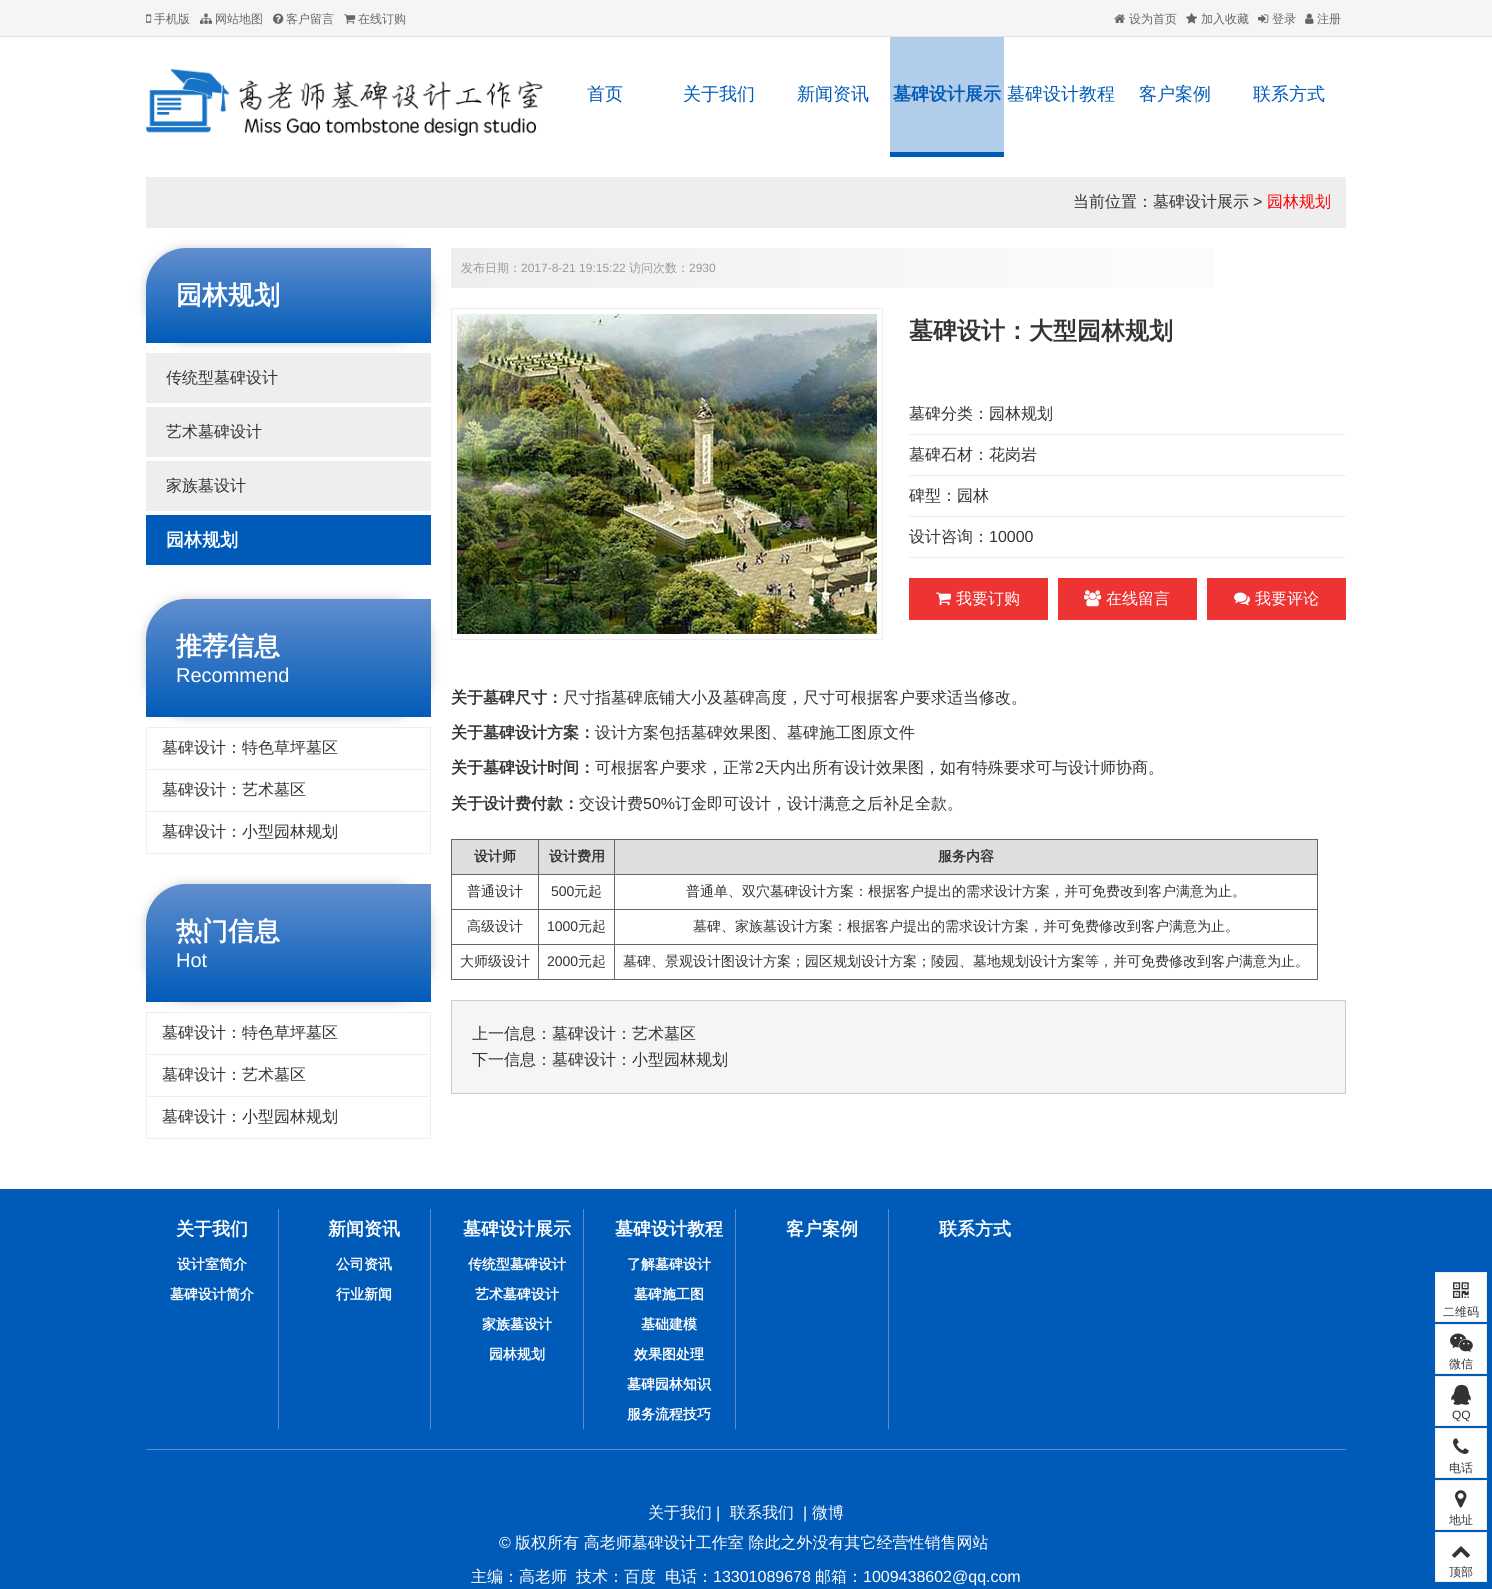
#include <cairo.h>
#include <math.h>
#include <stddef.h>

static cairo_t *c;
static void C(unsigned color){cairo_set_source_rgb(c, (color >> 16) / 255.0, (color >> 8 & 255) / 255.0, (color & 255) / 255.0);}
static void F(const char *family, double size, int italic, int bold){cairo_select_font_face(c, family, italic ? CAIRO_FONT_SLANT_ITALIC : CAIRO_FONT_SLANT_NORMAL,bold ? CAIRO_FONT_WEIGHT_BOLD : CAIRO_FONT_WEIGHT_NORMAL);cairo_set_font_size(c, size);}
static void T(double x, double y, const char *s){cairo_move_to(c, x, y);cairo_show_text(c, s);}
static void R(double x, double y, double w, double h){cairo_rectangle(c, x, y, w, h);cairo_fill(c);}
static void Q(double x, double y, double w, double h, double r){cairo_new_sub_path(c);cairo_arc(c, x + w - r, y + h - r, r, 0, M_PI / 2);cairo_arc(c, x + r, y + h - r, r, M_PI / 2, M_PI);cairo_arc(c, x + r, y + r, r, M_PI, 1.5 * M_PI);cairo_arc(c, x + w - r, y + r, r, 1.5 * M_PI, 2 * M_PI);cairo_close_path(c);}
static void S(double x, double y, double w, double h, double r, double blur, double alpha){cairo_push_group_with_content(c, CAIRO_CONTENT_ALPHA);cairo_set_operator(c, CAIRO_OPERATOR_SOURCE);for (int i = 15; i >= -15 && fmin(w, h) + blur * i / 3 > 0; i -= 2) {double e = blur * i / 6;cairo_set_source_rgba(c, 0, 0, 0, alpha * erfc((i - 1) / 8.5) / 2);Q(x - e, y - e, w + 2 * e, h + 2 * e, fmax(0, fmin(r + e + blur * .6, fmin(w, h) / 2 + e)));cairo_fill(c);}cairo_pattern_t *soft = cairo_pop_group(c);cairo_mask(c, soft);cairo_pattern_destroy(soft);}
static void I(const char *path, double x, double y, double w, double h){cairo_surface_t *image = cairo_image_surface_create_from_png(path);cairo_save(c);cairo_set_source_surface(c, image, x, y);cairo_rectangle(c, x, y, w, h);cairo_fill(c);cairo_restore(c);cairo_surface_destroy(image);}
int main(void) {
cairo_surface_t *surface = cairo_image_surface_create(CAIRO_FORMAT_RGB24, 1492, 1589);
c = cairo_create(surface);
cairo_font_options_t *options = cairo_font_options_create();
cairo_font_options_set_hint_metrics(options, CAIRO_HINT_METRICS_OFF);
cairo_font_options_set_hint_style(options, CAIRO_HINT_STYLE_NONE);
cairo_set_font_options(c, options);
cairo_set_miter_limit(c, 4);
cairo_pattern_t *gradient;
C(0xffffff);
cairo_paint(c);
C(0xf5f5f5);
R(0,0,1492,36);
C(0xe3e3e3);
R(0,36,1492,1);
I("1.png",146,14,6,9);
F("WenQuanYi Zen Hei Medium",12,0,0);
C(0x666666);
T(154,23,"手机版");
I("2.png",200,13,12,11);
T(215,23,"网站地图");
I("3.png",273,13,11,11);
T(286,23,"客户留言");
I("4.png",344,14,12,10);
T(358,23,"在线订购");
I("5.png",1114,14,11,9);
T(1129,23,"设为首页");
I("6.png",1186,13,11,11);
T(1201,23,"加入收藏");
I("7.png",1258,14,11,9);
T(1272,23,"登录");
I("8.png",1305,13,9,11);
T(1317,23,"注册");
I("9.png",146,68,397,68);
F("WenQuanYi Zen Hei Medium",18,0,0);
C(0x005bb8);
T(587,100,"首页");
T(683,100,"关于我们");
T(797,100,"新闻资讯");
C(0xb2cdea);
R(890,37,114,115);
C(0x005bb8);
R(890,152,114,5);
F("WenQuanYi Zen Hei",18,0,1);
T(893,100,"墓碑设计展示");
F("WenQuanYi Zen Hei Medium",18,0,0);
T(1007,100,"墓碑设计教程");
T(1139,100,"客户案例");
T(1253,100,"联系方式");
C(0xeeeeee);
R(146,177,1200,51);
F("WenQuanYi Zen Hei Medium",16,0,0);
C(0x333333);
T(1073,207,"当前位置：墓碑设计展示");
F("Liberation Sans",16,0,0);
T(1253,207,">");
F("WenQuanYi Zen Hei Medium",16,0,0);
C(0xff0000);
T(1267,207,"园林规划");
C(0xcccccc);
S(146,248,285,95,40,5,1);
gradient = cairo_pattern_create_linear(289,248,289,343);
cairo_pattern_add_color_stop_rgba(gradient,0,0.384,0.557,0.808,1);
cairo_pattern_add_color_stop_rgba(gradient,1,0,0.357,0.722,1);
cairo_set_source(c,gradient);
cairo_pattern_destroy(gradient);
cairo_new_path(c);
cairo_move_to(c,186,248);
cairo_line_to(c,431,248);
cairo_line_to(c,431,343);
cairo_line_to(c,146,343);
cairo_line_to(c,146,288);
cairo_curve_to(c,146,266,164,248,186,248);
cairo_close_path(c);
cairo_fill(c);
F("WenQuanYi Zen Hei",26,0,1);
C(0xffffff);
T(176,304,"园林规划");
C(0xeeeeee);
R(146,353,285,50);
F("WenQuanYi Zen Hei Medium",16,0,0);
C(0x333333);
T(166,383,"传统型墓碑设计");
C(0xeeeeee);
R(146,407,285,50);
C(0x333333);
T(166,437,"艺术墓碑设计");
C(0xeeeeee);
R(146,461,285,50);
C(0x333333);
T(166,491,"家族墓设计");
C(0x005bb8);
R(146,515,285,50);
F("WenQuanYi Zen Hei",18,0,1);
C(0xffffff);
T(166,546,"园林规划");
C(0xcccccc);
S(146,599,285,118,40,5,1);
gradient = cairo_pattern_create_linear(289,599,289,717);
cairo_pattern_add_color_stop_rgba(gradient,0,0.384,0.557,0.808,1);
cairo_pattern_add_color_stop_rgba(gradient,1,0,0.357,0.722,1);
cairo_set_source(c,gradient);
cairo_pattern_destroy(gradient);
cairo_new_path(c);
cairo_move_to(c,186,599);
cairo_line_to(c,431,599);
cairo_line_to(c,431,717);
cairo_line_to(c,146,717);
cairo_line_to(c,146,639);
cairo_curve_to(c,146,617,164,599,186,599);
cairo_close_path(c);
cairo_fill(c);
F("WenQuanYi Zen Hei",26,0,1);
C(0xffffff);
T(176,655,"推荐信息");
F("Liberation Sans",20,0,0);
T(176,682,"Recommend");
cairo_rectangle(c,146.5,727.5,284,126);
C(0xeeeeee);
cairo_set_line_width(c,1);
cairo_stroke(c);
R(147,769,283,1);
F("WenQuanYi Zen Hei Medium",16,0,0);
C(0x333333);
T(162,753,"墓碑设计：特色草坪墓区");
C(0xeeeeee);
R(147,811,283,1);
C(0x333333);
T(162,795,"墓碑设计：艺术墓区");
T(162,837,"墓碑设计：小型园林规划");
C(0xcccccc);
S(146,884,285,118,40,5,1);
gradient = cairo_pattern_create_linear(289,884,289,1002);
cairo_pattern_add_color_stop_rgba(gradient,0,0.384,0.557,0.808,1);
cairo_pattern_add_color_stop_rgba(gradient,1,0,0.357,0.722,1);
cairo_set_source(c,gradient);
cairo_pattern_destroy(gradient);
cairo_new_path(c);
cairo_move_to(c,186,884);
cairo_line_to(c,431,884);
cairo_line_to(c,431,1002);
cairo_line_to(c,146,1002);
cairo_line_to(c,146,924);
cairo_curve_to(c,146,902,164,884,186,884);
cairo_close_path(c);
cairo_fill(c);
F("WenQuanYi Zen Hei",26,0,1);
C(0xffffff);
T(176,940,"热门信息");
F("Liberation Sans",20,0,0);
T(176,967,"Hot");
cairo_rectangle(c,146.5,1012.5,284,126);
C(0xeeeeee);
cairo_stroke(c);
R(147,1054,283,1);
F("WenQuanYi Zen Hei Medium",16,0,0);
C(0x333333);
T(162,1038,"墓碑设计：特色草坪墓区");
C(0xeeeeee);
R(147,1096,283,1);
C(0x333333);
T(162,1080,"墓碑设计：艺术墓区");
T(162,1122,"墓碑设计：小型园林规划");
gradient = cairo_pattern_create_linear(451,268,1346,268);
cairo_pattern_add_color_stop_rgba(gradient,0,0.933,0.933,0.933,1);
cairo_pattern_add_color_stop_rgba(gradient,1,1,1,1,1);
cairo_set_source(c,gradient);
cairo_pattern_destroy(gradient);
R(451,248,763,40);
F("WenQuanYi Zen Hei Medium",12,0,0);
C(0x999999);
T(461,272,"发布日期：");
F("Liberation Sans",12,0,0);
T(521,272,"2017-8-21 19:15:22");
F("WenQuanYi Zen Hei Medium",12,0,0);
T(629,272,"访问次数：");
F("Liberation Sans",12,0,0);
T(689,272,"2930");
cairo_rectangle(c,451.5,308.5,431,331);
C(0xeeeeee);
cairo_stroke(c);
I("10.png",457,314,420,320);
F("WenQuanYi Zen Hei",24,0,1);
C(0x333333);
T(909,339,"墓碑设计：大型园林规划");
C(0xeeeeee);
R(909,434,437,1);
F("WenQuanYi Zen Hei Medium",16,0,0);
C(0x333333);
T(909,419,"墓碑分类：园林规划");
C(0xeeeeee);
R(909,475,437,1);
C(0x333333);
T(909,460,"墓碑石材：花岗岩");
C(0xeeeeee);
R(909,516,437,1);
C(0x333333);
T(909,501,"碑型：园林");
C(0xeeeeee);
R(909,557,437,1);
C(0x333333);
T(909,542,"设计咨询：");
F("Liberation Sans",16,0,0);
T(989,542,"10000");
C(0xee3333);
R(909,578,139,42);
I("11.png",936,592,15,14);
F("WenQuanYi Zen Hei Medium",16,0,0);
C(0xffffff);
T(956,604,"我要订购");
C(0xee3333);
R(1058,578,139,42);
I("12.png",1084,590,18,17);
C(0xffffff);
T(1106,604,"在线留言");
C(0xee3333);
R(1207,578,139,42);
I("13.png",1234,592,16,14);
C(0xffffff);
T(1255,604,"我要评论");
F("WenQuanYi Zen Hei",16,0,1);
C(0x333333);
T(451,703,"关于墓碑尺寸：");
F("WenQuanYi Zen Hei Medium",16,0,0);
T(563,703,"尺寸指墓碑底铺大小及墓碑高度，尺寸可根据客户要求适当修改。");
F("WenQuanYi Zen Hei",16,0,1);
T(451,738,"关于墓碑设计方案：");
F("WenQuanYi Zen Hei Medium",16,0,0);
T(595,738,"设计方案包括墓碑效果图、墓碑施工图原文件");
F("WenQuanYi Zen Hei",16,0,1);
T(451,773,"关于墓碑设计时间：");
F("WenQuanYi Zen Hei Medium",16,0,0);
T(595,773,"可根据客户要求，正常");
F("Liberation Sans",16,0,0);
T(755,773,"2");
F("WenQuanYi Zen Hei Medium",16,0,0);
T(764,773,"天内出所有设计效果图，如有特殊要求可与设计师协商。");
F("WenQuanYi Zen Hei",16,0,1);
T(451,809,"关于设计费付款：");
F("WenQuanYi Zen Hei Medium",16,0,0);
T(579,809,"交设计费");
F("Liberation Sans",16,0,0);
T(643,809,"50%");
F("WenQuanYi Zen Hei Medium",16,0,0);
T(675,809,"订金即可设计，设计满意之后补足全款。");
C(0xdedede);
R(452,840,86,34);
C(0x666666);
R(614,839,704,1);
R(614,874,704,1);
R(614,909,704,1);
R(614,944,704,1);
R(1317,944,1,36);
R(614,979,704,1);
R(614,944,1,36);
R(538,944,77,1);
R(614,909,1,36);
R(538,909,77,1);
R(614,874,1,36);
R(538,874,77,1);
R(614,839,1,36);
R(538,839,77,1);
R(538,979,77,1);
R(538,944,1,36);
R(451,944,88,1);
R(538,909,1,36);
R(451,909,88,1);
R(538,874,1,36);
R(451,874,88,1);
R(538,839,1,36);
R(451,839,88,1);
R(451,979,88,1);
R(451,944,1,36);
R(451,909,1,36);
R(451,874,1,36);
R(451,839,1,36);
F("WenQuanYi Zen Hei",14,0,1);
C(0x333333);
T(474,861,"设计师");
C(0xdedede);
R(539,840,75,34);
C(0x333333);
T(549,861,"设计费用");
C(0xdedede);
R(615,840,702,34);
C(0x666666);
R(1317,909,1,36);
R(1317,874,1,36);
R(1317,839,1,36);
C(0x333333);
T(938,861,"服务内容");
F("WenQuanYi Zen Hei Medium",14,0,0);
T(467,896,"普通设计");
F("Liberation Sans",14,0,0);
T(551,896,"500");
F("WenQuanYi Zen Hei Medium",14,0,0);
T(574,896,"元起");
T(686,896,"普通单、双穴墓碑设计方案：根据客户提出的需求设计方案，并可免费改到客户满意为止。");
T(467,931,"高级设计");
F("Liberation Sans",14,0,0);
T(547,931,"1000");
F("WenQuanYi Zen Hei Medium",14,0,0);
T(578,931,"元起");
T(693,931,"墓碑、家族墓设计方案：根据客户提出的需求设计方案，并可免费修改到客户满意为止。");
T(460,966,"大师级设计");
F("Liberation Sans",14,0,0);
T(547,966,"2000");
F("WenQuanYi Zen Hei Medium",14,0,0);
T(578,966,"元起");
T(623,966,"墓碑、景观设计图设计方案；园区规划设计方案；陵园、墓地规划设计方案等，并可免费修改到客户满意为止。");
C(0xf5f5f5);
cairo_rectangle(c,451.5,1000.5,894,93);
cairo_fill_preserve(c);
C(0xcccccc);
cairo_stroke(c);
F("WenQuanYi Zen Hei Medium",16,0,0);
C(0x333333);
T(472,1039,"上一信息：墓碑设计：艺术墓区");
T(472,1065,"下一信息：墓碑设计：小型园林规划");
C(0x005bb8);
R(0,1189,1492,400);
C(0x558ec9);
R(146,1449,1200,1);
R(278,1209,1,220);
F("WenQuanYi Zen Hei",18,0,1);
C(0xffffff);
T(176,1235,"关于我们");
F("WenQuanYi Zen Hei",14,0,1);
T(177,1269,"设计室简介");
T(170,1299,"墓碑设计简介");
C(0x558ec9);
R(430,1209,1,220);
F("WenQuanYi Zen Hei",18,0,1);
C(0xffffff);
T(328,1235,"新闻资讯");
F("WenQuanYi Zen Hei",14,0,1);
T(336,1269,"公司资讯");
T(336,1299,"行业新闻");
C(0x558ec9);
R(583,1209,1,220);
F("WenQuanYi Zen Hei",18,0,1);
C(0xffffff);
T(463,1235,"墓碑设计展示");
F("WenQuanYi Zen Hei",14,0,1);
T(468,1269,"传统型墓碑设计");
T(475,1299,"艺术墓碑设计");
T(482,1329,"家族墓设计");
T(489,1359,"园林规划");
C(0x558ec9);
R(735,1209,1,220);
F("WenQuanYi Zen Hei",18,0,1);
C(0xffffff);
T(615,1235,"墓碑设计教程");
F("WenQuanYi Zen Hei",14,0,1);
T(627,1269,"了解墓碑设计");
T(634,1299,"墓碑施工图");
T(641,1329,"基础建模");
T(634,1359,"效果图处理");
T(627,1389,"墓碑园林知识");
T(627,1419,"服务流程技巧");
C(0x558ec9);
R(888,1209,1,220);
F("WenQuanYi Zen Hei",18,0,1);
C(0xffffff);
T(786,1235,"客户案例");
T(939,1235,"联系方式");
F("WenQuanYi Zen Hei Medium",16,0,0);
T(648,1518,"关于我们");
F("Liberation Sans",16,0,0);
T(716,1518,"|");
F("WenQuanYi Zen Hei Medium",16,0,0);
T(730,1518,"联系我们");
F("Liberation Sans",16,0,0);
T(803,1518,"|");
F("WenQuanYi Zen Hei Medium",16,0,0);
T(812,1518,"微博");
F("Liberation Sans",16,0,0);
T(499,1548,"©");
F("WenQuanYi Zen Hei Medium",16,0,0);
T(515,1548,"版权所有 高老师墓碑设计工作室 除此之外没有其它经营性销售网站");
T(471,1582,"主编：高老师");
T(576,1582,"技术：百度");
T(665,1582,"电话：");
F("Liberation Sans",16,0,0);
T(713,1582,"13301089678");
F("WenQuanYi Zen Hei Medium",16,0,0);
T(815,1582,"邮箱：");
F("Liberation Sans",16,0,0);
T(863,1582,"1009438602@qq.com");
cairo_rectangle(c,1435.5,1272.5,51,49);
cairo_fill_preserve(c);
C(0xeeeeee);
cairo_stroke(c);
I("14.png",1453,1282,16,16);
F("WenQuanYi Zen Hei Medium",12,0,0);
C(0x333333);
T(1443,1316,"二维码");
C(0xffffff);
cairo_rectangle(c,1435.5,1324.5,51,49);
cairo_fill_preserve(c);
C(0xeeeeee);
cairo_stroke(c);
I("15.png",1450,1333,23,19);
C(0x333333);
T(1449,1368,"微信");
C(0xffffff);
cairo_rectangle(c,1435.5,1376.5,51,49);
cairo_fill_preserve(c);
C(0xeeeeee);
cairo_stroke(c);
I("16.png",1451,1384,20,21);
F("Liberation Sans",12,0,0);
C(0x333333);
T(1452,1419,"QQ");
C(0xffffff);
cairo_rectangle(c,1435.5,1428.5,51,49);
cairo_fill_preserve(c);
C(0xeeeeee);
cairo_stroke(c);
I("17.png",1453,1438,16,16);
F("WenQuanYi Zen Hei Medium",12,0,0);
C(0x333333);
T(1449,1472,"电话");
C(0xffffff);
cairo_rectangle(c,1435.5,1480.5,51,49);
cairo_fill_preserve(c);
C(0xeeeeee);
cairo_stroke(c);
I("18.png",1455,1490,12,18);
C(0x333333);
T(1449,1524,"地址");
C(0xffffff);
cairo_rectangle(c,1435.5,1532.5,51,49);
cairo_fill_preserve(c);
C(0xeeeeee);
cairo_stroke(c);
I("19.png",1452,1546,18,12);
C(0x333333);
T(1449,1576,"顶部");
cairo_surface_write_to_png(surface, "o.png");
cairo_font_options_destroy(options);
cairo_destroy(c);
cairo_surface_destroy(surface);
return 0;
}
